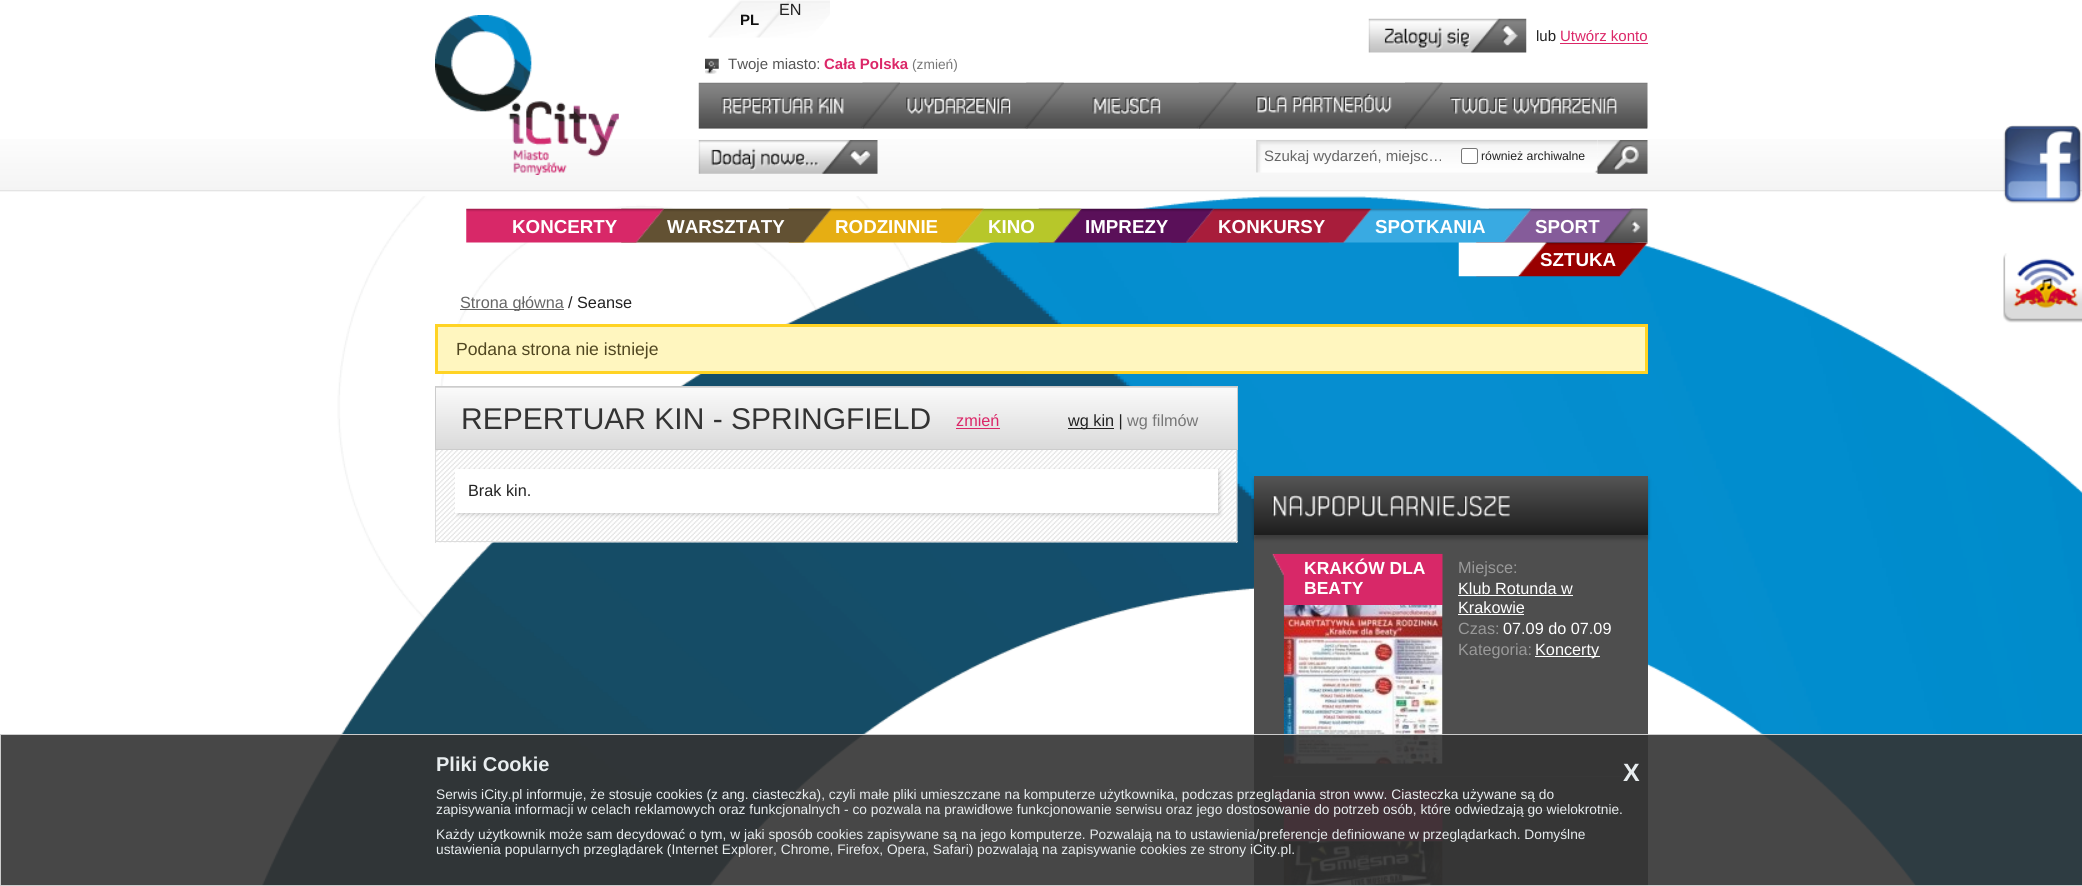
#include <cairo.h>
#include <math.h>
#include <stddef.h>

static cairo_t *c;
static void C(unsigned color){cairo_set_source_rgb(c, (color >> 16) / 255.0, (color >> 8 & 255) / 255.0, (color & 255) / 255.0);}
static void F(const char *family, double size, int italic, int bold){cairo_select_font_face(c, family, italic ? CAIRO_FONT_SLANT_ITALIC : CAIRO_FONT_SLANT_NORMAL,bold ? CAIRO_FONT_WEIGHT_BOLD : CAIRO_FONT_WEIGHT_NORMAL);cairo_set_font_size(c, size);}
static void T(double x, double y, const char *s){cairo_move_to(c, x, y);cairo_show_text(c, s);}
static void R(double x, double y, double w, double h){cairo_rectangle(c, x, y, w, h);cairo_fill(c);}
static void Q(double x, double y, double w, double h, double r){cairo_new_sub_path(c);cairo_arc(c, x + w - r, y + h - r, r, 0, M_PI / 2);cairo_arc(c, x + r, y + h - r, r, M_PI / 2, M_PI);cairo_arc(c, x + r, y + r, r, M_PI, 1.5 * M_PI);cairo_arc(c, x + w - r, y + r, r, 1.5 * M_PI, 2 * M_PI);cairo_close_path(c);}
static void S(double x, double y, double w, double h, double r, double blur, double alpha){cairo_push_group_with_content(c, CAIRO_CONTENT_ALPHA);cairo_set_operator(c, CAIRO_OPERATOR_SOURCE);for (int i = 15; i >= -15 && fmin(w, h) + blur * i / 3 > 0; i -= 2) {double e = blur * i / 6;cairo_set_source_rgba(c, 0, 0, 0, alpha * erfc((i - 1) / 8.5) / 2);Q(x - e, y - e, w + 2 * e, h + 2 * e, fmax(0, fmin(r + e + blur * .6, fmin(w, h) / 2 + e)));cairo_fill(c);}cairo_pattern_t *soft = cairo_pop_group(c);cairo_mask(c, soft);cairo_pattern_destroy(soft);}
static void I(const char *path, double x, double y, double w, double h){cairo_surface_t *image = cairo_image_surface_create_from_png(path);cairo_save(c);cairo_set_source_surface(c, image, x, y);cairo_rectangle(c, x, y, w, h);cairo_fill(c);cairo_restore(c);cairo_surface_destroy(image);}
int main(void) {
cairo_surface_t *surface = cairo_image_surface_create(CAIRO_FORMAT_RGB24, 2082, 886);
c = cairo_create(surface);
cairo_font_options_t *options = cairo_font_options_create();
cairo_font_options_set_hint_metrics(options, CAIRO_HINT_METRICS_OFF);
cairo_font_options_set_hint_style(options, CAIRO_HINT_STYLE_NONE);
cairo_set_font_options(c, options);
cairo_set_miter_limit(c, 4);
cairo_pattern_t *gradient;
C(0xffffff);
cairo_paint(c);
gradient = cairo_pattern_create_linear(0,0,0,190);
cairo_pattern_add_color_stop_rgba(gradient,.65,1,1,1,1);
cairo_pattern_add_color_stop_rgba(gradient,1,0.957,0.957,0.957,1);
cairo_set_source(c,gradient);
cairo_pattern_destroy(gradient);
R(0,139,2082,51);
C(0xe4e4e4);
R(0,190,2082,1);
I("1.png",435,15,184,160);
I("2.png",708,0,122,38);
F("Liberation Sans",16.25,0,0);
C(0x222222);
T(779,15,"EN");
F("Liberation Sans",15,0,1);
C(0x111111);
T(740,25,"PL");
I("3.png",1368,18,159,35);
F("Liberation Sans",15,0,0);
C(0x222222);
T(1536,41,"lub");
C(0xdb2768);
T(1560,41,"Utwórz konto");
R(1560,43,88,1);
I("4.png",705,58,14,16);
C(0x555555);
T(728,69,"Twoje miasto:");
F("Liberation Sans",15,0,1);
C(0xdb2768);
T(824,69,"Cała Polska");
F("Liberation Sans",13.75,0,0);
C(0x777777);
T(912,69,"(zmień)");
I("13.png",1405,82,243,47);
I("11.png",1198,82,245,47);
I("9.png",1026,82,211,47);
I("7.png",862,82,202,47);
I("5.png",698,82,202,47);
I("6.png",721,96,123,18);
I("8.png",906,96,105,18);
I("10.png",1092,96,69,18);
I("12.png",1256,93,136,20);
I("14.png",1450,96,167,18);
I("15.png",698,140,180,34);
I("16.png",1256,140,342,33);
F("Liberation Sans",15,0,0);
C(0x666666);
T(1264,161,"Szukaj wydarzeń, miejsc…");
C(0xffffff);
Q(1461.5,148.5,16,15,2);
cairo_fill_preserve(c);
C(0x767676);
cairo_set_line_width(c,1);
cairo_stroke(c);
F("Liberation Sans",12.25,0,0);
C(0x222222);
T(1481,160,"również archiwalne");
I("17.png",1597,140,51,34);
I("19.png",261,196,1821,690);
C(0xf6f6f6);
R(0,191,2082,1);
I("18.png",2003,125,79,79);
I("27.png",1488,208,159,35);
I("26.png",1328,208,204,35);
I("25.png",1171,208,201,35);
I("24.png",1038,208,176,35);
I("23.png",941,208,141,35);
I("22.png",788,208,196,35);
I("21.png",621,208,211,35);
I("20.png",466,208,198,35);
F("Liberation Sans",18.75,0,1);
C(0xffffff);
T(512,233,"KONCERTY");
T(667,233,"WARSZTATY");
T(835,233,"RODZINNIE");
T(988,233,"KINO");
T(1085,233,"IMPREZY");
T(1218,233,"KONKURSY");
T(1375,233,"SPOTKANIA");
T(1535,233,"SPORT");
I("30.png",1476,242,172,35);
I("28.png",1603,208,45,35);
T(1540,266,"SZTUKA");
I("29.png",1458,242,89,35);
C(0x666666);
R(460,309,104,1);
cairo_save(c);
cairo_rectangle(c,460,293,1188,18);
cairo_clip(c);
F("Liberation Sans",16.25,0,0);
T(460,308,"Strona główna");
cairo_restore(c);
F("Liberation Sans",16.25,0,0);
C(0x222222);
T(568,308,"/ Seanse");
C(0xfff6bf);
cairo_rectangle(c,436.5,325.5,1210,47);
cairo_fill_preserve(c);
C(0xffd324);
cairo_set_line_width(c,3);
cairo_stroke(c);
F("Liberation Sans",17.6,0,0);
C(0x514721);
T(456,355,"Podana strona nie istnieje");
gradient = cairo_pattern_create_linear(436,326,436,388);
cairo_pattern_add_color_stop_rgba(gradient,0,0.98,0.98,0.98,1);
cairo_pattern_add_color_stop_rgba(gradient,1,0.855,0.855,0.855,1);
cairo_set_source(c,gradient);
cairo_pattern_destroy(gradient);
R(435,387,803,1);
gradient = cairo_pattern_create_linear(436,388,436,449);
cairo_pattern_add_color_stop_rgba(gradient,0,0.98,0.98,0.98,1);
cairo_pattern_add_color_stop_rgba(gradient,1,0.855,0.855,0.855,1);
cairo_set_source(c,gradient);
cairo_pattern_destroy(gradient);
R(436,388,801,61);
cairo_rectangle(c,435.5,386.5,802,63);
C(0xcccccc);
cairo_set_line_width(c,1);
cairo_stroke(c);
F("Liberation Sans",30,0,0);
C(0x333333);
T(461,429,"REPERTUAR KIN - SPRINGFIELD");
F("Liberation Sans",16.25,0,0);
C(0xdb2768);
T(956,426,"zmień");
R(956,428,44,1);
C(0x222222);
R(1068,428,46,1);
T(1068,426,"wg kin |");
C(0x777777);
T(1127,426,"wg filmów");
I("31.png",436,450,802,93);
C(0xdddddd);
R(1236,450,1,93);
R(435,541,803,1);
R(435,450,1,93);
C(0x000000);
S(458,471,762,44,0,2,.15);
C(0xffffff);
R(455,469,763,44);
C(0x222222);
T(468,496,"Brak kin.");
C(0x4e4e4e);
R(1254,535,394,351);
C(0x000000);
S(1254,480,394,59,0,2,.25);
gradient = cairo_pattern_create_linear(1254,476,1254,535);
cairo_pattern_add_color_stop_rgba(gradient,0,0.333,0.333,0.333,1);
cairo_pattern_add_color_stop_rgba(gradient,1,0.114,0.114,0.114,1);
cairo_set_source(c,gradient);
cairo_pattern_destroy(gradient);
R(1254,476,394,59);
I("32.png",1272,495,238,22);
C(0x666666);
R(1273,776,356,1);
I("33.png",1272,553,171,52);
F("Liberation Sans",17.5,0,1);
C(0xffffff);
T(1304,574,"KRAKÓW DLA");
T(1304,594,"BEATY");
I("34.png",1283,605,160,159);
F("Liberation Sans",16.25,0,0);
C(0x999999);
T(1458,573,"Miejsce:");
C(0xffffff);
T(1458,594,"Klub Rotunda w");
R(1458,595,115,1);
T(1458,613,"Krakowie");
R(1458,614,66,1);
C(0x999999);
T(1458,634,"Czas:");
C(0xffffff);
T(1503,634,"07.09 do 07.09");
C(0x999999);
T(1458,655,"Kategoria:");
C(0xffffff);
R(1535,656,65,1);
T(1535,655,"Koncerty");
I("35.png",1272,790,171,52);
I("36.png",1283,841,160,45);
R(1521,810,92,1);
I("37.png",2003,253,79,70);
cairo_set_source_rgba(c,0.2,0.2,0.2,0.9);
R(0,734,2082,152);
cairo_rectangle(c,.5,734.5,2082,151);
cairo_set_source_rgba(c,0.867,0.867,0.867,0.9);
cairo_stroke(c);
F("Liberation Sans",20,0,1);
C(0xe8edef);
T(436,771,"Pliki Cookie");
F("Liberation Sans",25,0,1);
T(1623,781,"X");
F("Liberation Sans",13.75,0,0);
T(436,799,"Serwis iCity.pl informuje, że stosuje cookies (z ang. ciasteczka), czyli małe pliki umieszczane na komputerze użytkownika, podczas przeglądania stron www. Ciasteczka używane są do");
T(436,814,"zapisywania informacji w celach reklamowych oraz funkcjonalnych - co pozwala na prawidłowe funkcjonowanie serwisu oraz jego dostosowanie do potrzeb osób, które odwiedzają go wielokrotnie.");
T(436,839,"Każdy użytkownik może sam decydować o tym, w jaki sposób cookies zapisywane są na jego komputerze. Pozwalają na to ustawienia/preferencje definiowane w przeglądarkach. Domyślne");
T(436,854,"ustawienia popularnych przeglądarek (Internet Explorer, Chrome, Firefox, Opera, Safari) pozwalają na zapisywanie cookies ze strony iCity.pl.");
cairo_surface_write_to_png(surface, "o.png");
cairo_font_options_destroy(options);
cairo_destroy(c);
cairo_surface_destroy(surface);
return 0;
}
